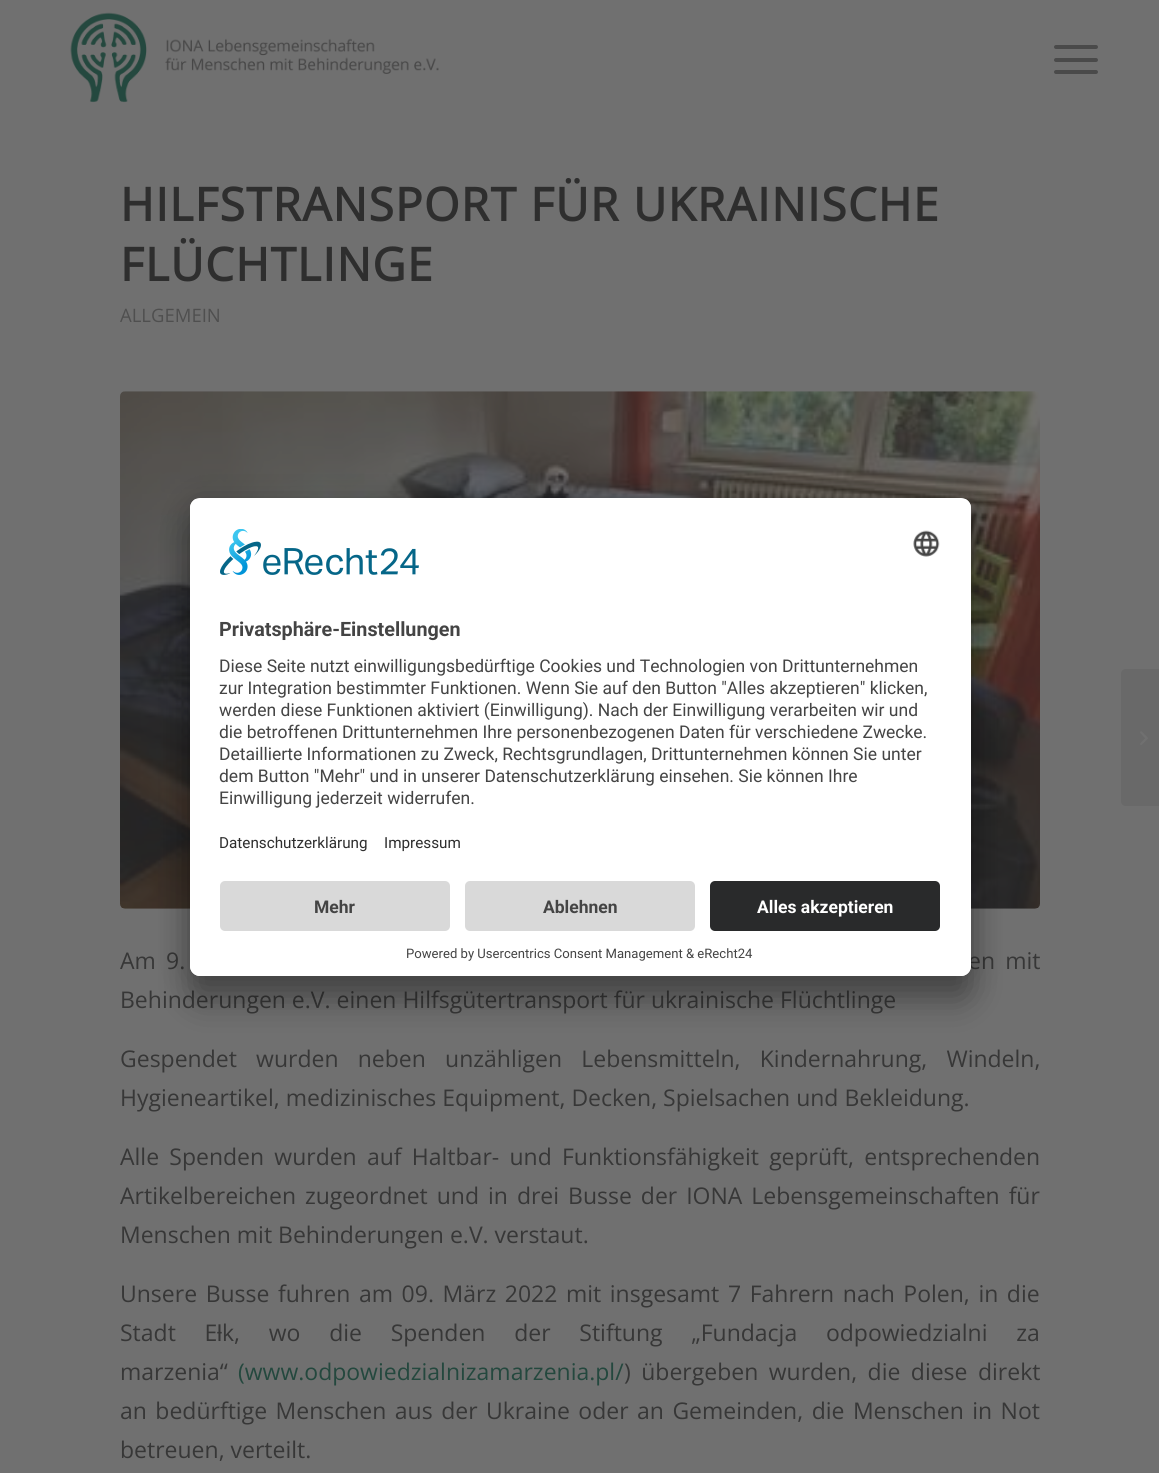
#include <cairo.h>
#include <math.h>
#include <stddef.h>

static cairo_t *c;
static void C(unsigned color){cairo_set_source_rgb(c, (color >> 16) / 255.0, (color >> 8 & 255) / 255.0, (color & 255) / 255.0);}
static void F(const char *family, double size, int italic, int bold){cairo_select_font_face(c, family, italic ? CAIRO_FONT_SLANT_ITALIC : CAIRO_FONT_SLANT_NORMAL,bold ? CAIRO_FONT_WEIGHT_BOLD : CAIRO_FONT_WEIGHT_NORMAL);cairo_set_font_size(c, size);}
static void T(double x, double y, const char *s){cairo_move_to(c, x, y);cairo_show_text(c, s);}
static void L(double x, double y, const char *s, double letter, double word){cairo_move_to(c, x, y);while (*s) {char ch[5] = {0};int n = 0;do ch[n++] = *s++; while ((*s & 0xC0) == 0x80);cairo_show_text(c, ch);cairo_rel_move_to(c, letter + word * (*ch == ' '), 0);}}
static void R(double x, double y, double w, double h){cairo_rectangle(c, x, y, w, h);cairo_fill(c);}
static void Q(double x, double y, double w, double h, double r){cairo_new_sub_path(c);cairo_arc(c, x + w - r, y + h - r, r, 0, M_PI / 2);cairo_arc(c, x + r, y + h - r, r, M_PI / 2, M_PI);cairo_arc(c, x + r, y + r, r, M_PI, 1.5 * M_PI);cairo_arc(c, x + w - r, y + r, r, 1.5 * M_PI, 2 * M_PI);cairo_close_path(c);}
static void S(double x, double y, double w, double h, double r, double blur, double alpha){cairo_push_group_with_content(c, CAIRO_CONTENT_ALPHA);cairo_set_operator(c, CAIRO_OPERATOR_SOURCE);for (int i = 15; i >= -15 && fmin(w, h) + blur * i / 3 > 0; i -= 2) {double e = blur * i / 6;cairo_set_source_rgba(c, 0, 0, 0, alpha * erfc((i - 1) / 8.5) / 2);Q(x - e, y - e, w + 2 * e, h + 2 * e, fmax(0, fmin(r + e + blur * .6, fmin(w, h) / 2 + e)));cairo_fill(c);}cairo_pattern_t *soft = cairo_pop_group(c);cairo_mask(c, soft);cairo_pattern_destroy(soft);}
static void I(const char *path, double x, double y, double w, double h){cairo_surface_t *image = cairo_image_surface_create_from_png(path);cairo_save(c);cairo_set_source_surface(c, image, x, y);cairo_rectangle(c, x, y, w, h);cairo_fill(c);cairo_restore(c);cairo_surface_destroy(image);}
int main(void) {
cairo_surface_t *surface = cairo_image_surface_create(CAIRO_FORMAT_RGB24, 1159, 1473);
c = cairo_create(surface);
cairo_font_options_t *options = cairo_font_options_create();
cairo_font_options_set_hint_metrics(options, CAIRO_HINT_METRICS_OFF);
cairo_font_options_set_hint_style(options, CAIRO_HINT_STYLE_NONE);
cairo_set_font_options(c, options);
cairo_set_miter_limit(c, 4);
C(0x707070);
cairo_paint(c);
I("1.png",70,12,369,91);
C(0x4a4a4a);
Q(1054,58,44,4,2);
cairo_fill(c);
Q(1054,45,44,4,2);
cairo_fill(c);
Q(1054,70,44,4,2);
cairo_fill(c);
F("Open Sans",46,0,1);
C(0x2e2e2e);
L(120,221,"HILFSTRANSPORT FÜR UKRAINISCHE",1.25,0);
L(120,281,"FLÜCHTLINGE",1.25,0);
F("Open Sans",18.5,0,0);
C(0x4f4f4f);
T(120,322,"ALLGEMEIN");
I("2.png",120,391,920,518);
F("Open Sans",23,0,0);
C(0x373737);
L(120,969,"Am 9.",0,4.25);
L(968,969,"en mit",0,4.25);
T(120,1008,"Behinderungen e.V. einen Hilfsgütertransport für ukrainische Flüchtlinge");
L(120,1067,"Gespendet wurden neben unzähligen Lebensmitteln, Kindernahrung, Windeln,",0,13.25);
T(120,1106,"Hygieneartikel, medizinisches Equipment, Decken, Spielsachen und Bekleidung.");
L(120,1165,"Alle Spenden wurden auf Haltbar- und Funktionsfähigkeit geprüft, entsprechenden",0,4.25);
L(120,1204,"Artikelbereichen zugeordnet und in drei Busse der IONA Lebensgemeinschaften für",0,3);
T(120,1243,"Menschen mit Behinderungen e.V. verstaut.");
L(120,1302,"Unsere Busse fuhren am 09. März 2022 mit insgesamt 7 Fahrern nach Polen, in die",0,2.6);
L(120,1341,"Stadt E",0,22.75);
F("Liberation Sans",23,0,0);
T(217,1341,"ƚ");
F("Open Sans",23,0,0);
L(222,1341,"k, wo die Spenden der Stiftung „Fundacja odpowiedzialni za",0,22.75);
T(120,1380,"marzenia“");
C(0x24483e);
T(238,1380,"(www.odpowiedzialnizamarzenia.pl/");
C(0x373737);
L(624,1380,") übergeben wurden, die diese direkt",0,4.5);
L(120,1419,"an bedürftige Menschen aus der Ukraine oder an Gemeinden, die Menschen in Not",0,2.5);
T(120,1458,"betreuen, verteilt.");
C(0x696969);
cairo_new_path(c);
cairo_move_to(c,1126,669);
cairo_line_to(c,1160,669);
cairo_line_to(c,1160,806);
cairo_line_to(c,1126,806);
cairo_curve_to(c,1123,806,1121,804,1121,801);
cairo_line_to(c,1121,674);
cairo_curve_to(c,1121,671,1123,669,1126,669);
cairo_close_path(c);
cairo_fill(c);
I("3.png",1140,731,8,14);
C(0x000000);
S(190,523,781,478,10,17.5,.3);
S(190,504,781,479,10,16,.22);
C(0xffffff);
Q(190,498,781,478,10);
cairo_fill(c);
cairo_save(c);
Q(190,498,781,478,10);
cairo_clip(c);
cairo_new_path(c);
cairo_move_to(c,200,498);
cairo_line_to(c,961,498);
cairo_curve_to(c,966.5,498,971,502.5,971,508);
cairo_line_to(c,971,871);
cairo_line_to(c,190,871);
cairo_line_to(c,190,508);
cairo_curve_to(c,190,502.5,194.5,498,200,498);
cairo_close_path(c);
cairo_clip(c);
R(190,499,781,372);
cairo_restore(c);
I("4.png",220,529,199,46);
I("5.png",913,530,27,27);
F("Roboto",19.75,0,1);
C(0x444444);
T(219,636,"Privatsphäre-Einstellungen");
F("Roboto",17.5,0,0);
T(219,672,"Diese Seite nutzt einwilligungsbedürftige Cookies und Technologien von Drittunternehmen");
T(219,694,"zur Integration bestimmter Funktionen. Wenn Sie auf den Button \"Alles akzeptieren\" klicken,");
T(219,716,"werden diese Funktionen aktiviert (Einwilligung). Nach der Einwilligung verarbeiten wir und");
T(219,738,"die betroffenen Drittunternehmen Ihre personenbezogenen Daten für verschiedene Zwecke.");
T(219,760,"Detaillierte Informationen zu Zweck, Rechtsgrundlagen, Drittunternehmen können Sie unter");
T(219,782,"dem Button \"Mehr\" und in unserer Datenschutzerklärung einsehen. Sie können Ihre");
T(219,804,"Einwilligung jederzeit widerrufen.");
F("Roboto",15.25,0,0);
C(0x2e2e2e);
T(219,848,"Datenschutzerklärung");
T(384,848,"Impressum");
C(0xffffff);
cairo_new_path(c);
cairo_move_to(c,190,871);
cairo_line_to(c,971,871);
cairo_line_to(c,971,966);
cairo_curve_to(c,971,971.5,966.5,976,961,976);
cairo_line_to(c,200,976);
cairo_curve_to(c,194.5,976,190,971.5,190,966);
cairo_close_path(c);
cairo_fill(c);
C(0xd9d9d9);
Q(220,881,230,50,5);
cairo_fill(c);
F("Roboto",17.5,0,1);
C(0x444444);
T(314,913,"Mehr");
C(0xd9d9d9);
Q(465,881,230,50,5);
cairo_fill(c);
C(0x444444);
T(543,913,"Ablehnen");
C(0x292a2b);
Q(710,881,230,50,5);
cairo_fill(c);
C(0xffffff);
T(757,913,"Alles akzeptieren");
F("Roboto",13.1,0,0);
C(0x444444);
T(406,958,"Powered by Usercentrics Consent Management & eRecht24");
cairo_surface_write_to_png(surface, "o.png");
cairo_font_options_destroy(options);
cairo_destroy(c);
cairo_surface_destroy(surface);
return 0;
}
